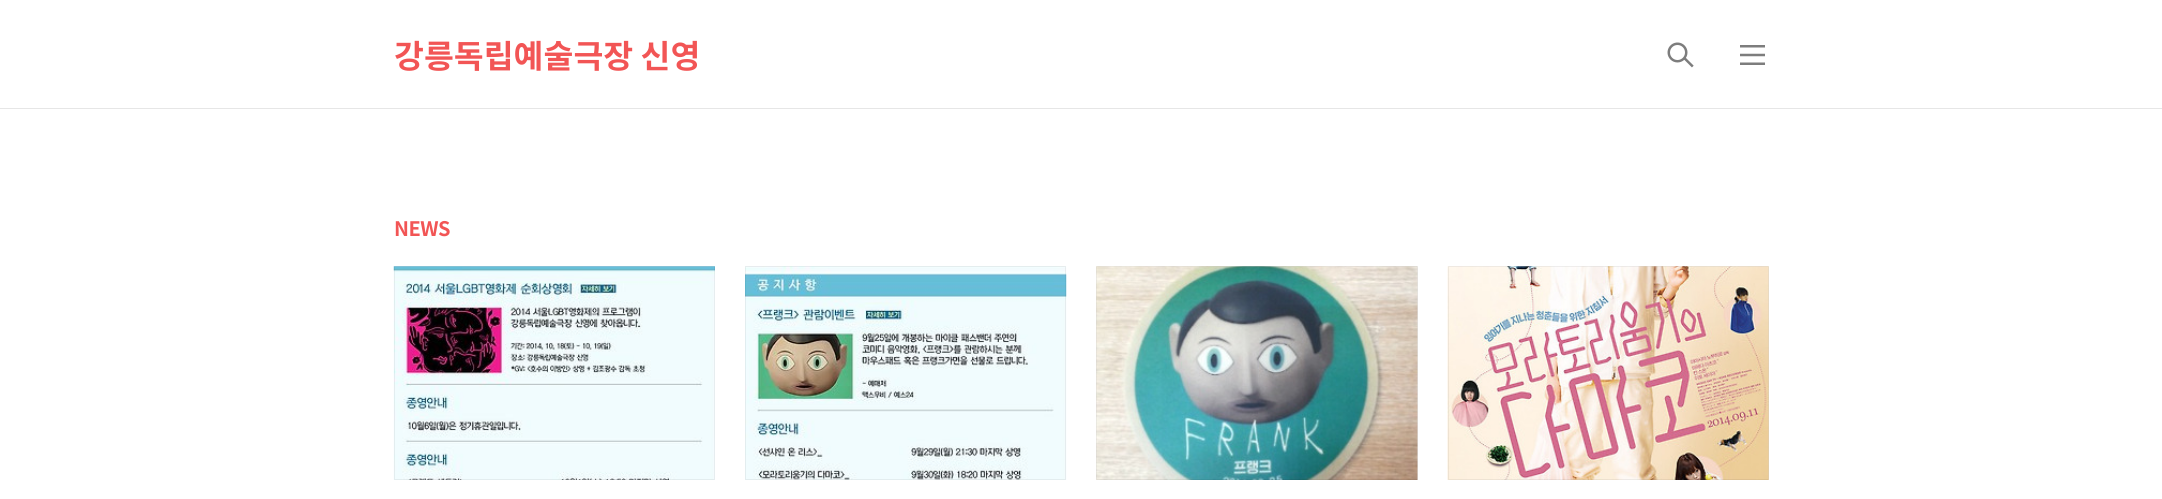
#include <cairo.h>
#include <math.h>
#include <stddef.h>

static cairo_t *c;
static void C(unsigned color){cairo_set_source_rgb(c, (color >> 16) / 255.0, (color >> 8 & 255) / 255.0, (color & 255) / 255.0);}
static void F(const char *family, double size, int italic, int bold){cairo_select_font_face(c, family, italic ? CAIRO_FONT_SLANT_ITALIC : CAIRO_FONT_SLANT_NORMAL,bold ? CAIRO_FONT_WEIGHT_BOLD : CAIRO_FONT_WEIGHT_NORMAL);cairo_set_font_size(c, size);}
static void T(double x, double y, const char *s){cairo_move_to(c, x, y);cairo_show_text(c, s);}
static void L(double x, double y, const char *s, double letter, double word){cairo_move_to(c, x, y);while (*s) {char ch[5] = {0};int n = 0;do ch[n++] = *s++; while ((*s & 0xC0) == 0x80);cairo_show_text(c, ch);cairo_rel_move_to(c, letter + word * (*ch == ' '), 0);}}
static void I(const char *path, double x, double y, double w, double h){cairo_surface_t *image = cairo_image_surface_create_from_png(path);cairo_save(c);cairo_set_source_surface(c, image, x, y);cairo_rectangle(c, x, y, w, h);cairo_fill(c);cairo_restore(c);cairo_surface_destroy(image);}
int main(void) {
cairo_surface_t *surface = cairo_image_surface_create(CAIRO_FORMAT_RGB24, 2162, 499);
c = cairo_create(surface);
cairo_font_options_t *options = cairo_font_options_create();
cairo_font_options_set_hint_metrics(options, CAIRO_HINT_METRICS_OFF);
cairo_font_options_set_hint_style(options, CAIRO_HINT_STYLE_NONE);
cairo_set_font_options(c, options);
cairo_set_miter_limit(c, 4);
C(0xffffff);
cairo_paint(c);
C(0xe6e6e6);
cairo_new_path(c);
cairo_move_to(c,0,108);
cairo_line_to(c,0,109);
cairo_line_to(c,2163,109);
cairo_line_to(c,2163,1);
cairo_line_to(c,2162,1);
cairo_line_to(c,2162,108);
cairo_close_path(c);
cairo_fill(c);
F("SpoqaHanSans",32.5,0,1);
C(0xf25555);
T(394,68,"강릉독립예술극장 신영");
I("1.png",1667,42,27,26);
I("2.png",1740,45,25,20);
F("SpoqaHanSans",20,0,1);
L(394,236,"NEWS",-.5,0);
I("3.png",393,266,322,214);
cairo_rectangle(c,394.5,266.5,320,213);
cairo_set_source_rgba(c,0,0,0,0.06);
cairo_set_line_width(c,1);
cairo_stroke(c);
I("4.png",745,266,322,214);
cairo_rectangle(c,745.5,266.5,320,213);
cairo_stroke(c);
I("5.png",1096,266,322,214);
cairo_rectangle(c,1096.5,266.5,321,213);
cairo_stroke(c);
I("6.png",1447,266,322,214);
cairo_rectangle(c,1448.5,266.5,320,213);
cairo_stroke(c);
cairo_surface_write_to_png(surface, "o.png");
cairo_font_options_destroy(options);
cairo_destroy(c);
cairo_surface_destroy(surface);
return 0;
}
